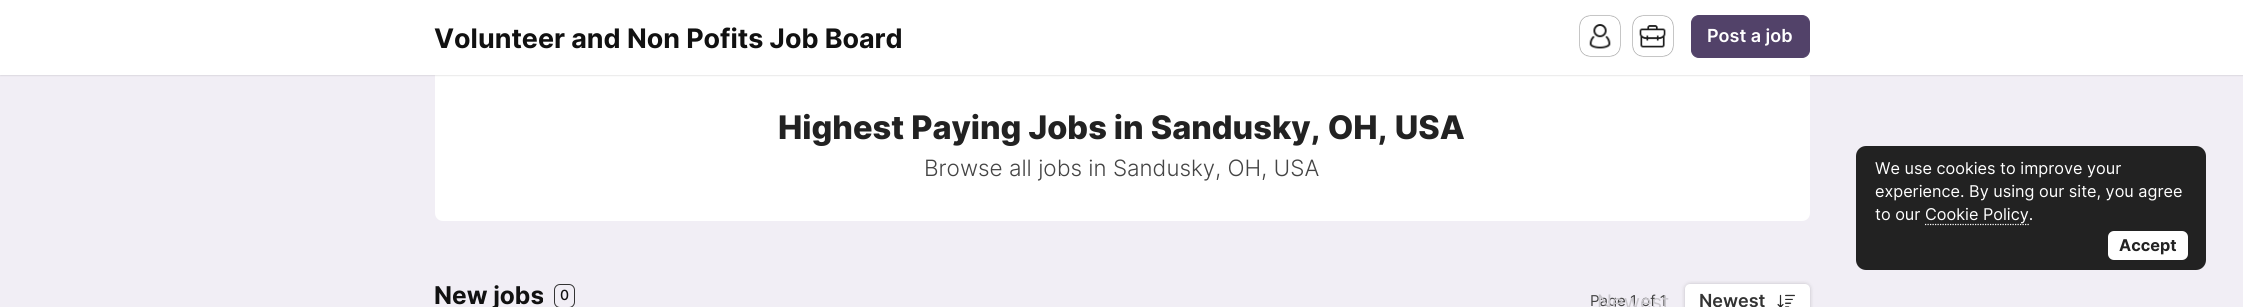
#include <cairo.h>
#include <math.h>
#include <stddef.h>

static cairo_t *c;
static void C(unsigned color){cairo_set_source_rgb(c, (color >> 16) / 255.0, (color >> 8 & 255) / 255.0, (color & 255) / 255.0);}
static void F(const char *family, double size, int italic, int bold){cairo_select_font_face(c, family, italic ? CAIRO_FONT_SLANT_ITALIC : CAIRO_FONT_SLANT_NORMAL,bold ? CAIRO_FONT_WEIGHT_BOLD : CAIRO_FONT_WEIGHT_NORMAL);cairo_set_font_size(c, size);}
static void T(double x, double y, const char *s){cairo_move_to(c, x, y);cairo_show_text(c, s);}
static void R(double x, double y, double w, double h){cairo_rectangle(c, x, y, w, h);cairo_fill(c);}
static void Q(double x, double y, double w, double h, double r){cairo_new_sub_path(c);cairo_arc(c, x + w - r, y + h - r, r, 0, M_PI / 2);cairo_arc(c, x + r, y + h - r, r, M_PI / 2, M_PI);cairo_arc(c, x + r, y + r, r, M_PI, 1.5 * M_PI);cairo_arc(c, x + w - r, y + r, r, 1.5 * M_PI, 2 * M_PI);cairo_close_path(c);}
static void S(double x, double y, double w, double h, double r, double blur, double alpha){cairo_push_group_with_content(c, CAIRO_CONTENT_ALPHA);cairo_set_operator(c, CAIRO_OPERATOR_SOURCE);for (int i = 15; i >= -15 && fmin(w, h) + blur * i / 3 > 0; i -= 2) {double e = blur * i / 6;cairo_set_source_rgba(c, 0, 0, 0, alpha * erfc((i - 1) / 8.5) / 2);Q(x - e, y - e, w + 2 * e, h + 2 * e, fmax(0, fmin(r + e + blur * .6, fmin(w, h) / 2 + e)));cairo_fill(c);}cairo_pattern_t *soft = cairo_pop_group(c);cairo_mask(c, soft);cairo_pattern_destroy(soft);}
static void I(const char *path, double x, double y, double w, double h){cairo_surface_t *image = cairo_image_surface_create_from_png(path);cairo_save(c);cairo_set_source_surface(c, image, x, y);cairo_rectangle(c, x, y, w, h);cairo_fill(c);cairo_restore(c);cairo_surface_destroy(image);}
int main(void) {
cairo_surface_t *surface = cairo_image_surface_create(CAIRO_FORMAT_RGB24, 2243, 307);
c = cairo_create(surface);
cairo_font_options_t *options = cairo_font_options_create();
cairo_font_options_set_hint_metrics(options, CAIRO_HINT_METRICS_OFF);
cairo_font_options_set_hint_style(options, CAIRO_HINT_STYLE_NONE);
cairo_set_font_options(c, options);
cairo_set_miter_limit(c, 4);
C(0xf1eef5);
cairo_paint(c);
C(0xffffff);
cairo_new_path(c);
cairo_move_to(c,435,75);
cairo_line_to(c,1810,75);
cairo_line_to(c,1810,213);
cairo_curve_to(c,1810,217.5,1806.5,221,1802,221);
cairo_line_to(c,443,221);
cairo_curve_to(c,438.5,221,435,217.5,435,213);
cairo_close_path(c);
cairo_fill(c);
C(0x000000);
S(0,0,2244,75,0,1,.2);
C(0xffffff);
R(0,0,2243,75);
F("Inter",26.9,0,1);
C(0x111111);
T(434,48,"Volunteer and Non Pofits Job Board");
C(0x000000);
S(1580,16,40,40,10,.5,.9);
C(0xffffff);
Q(1580,16,40,40,10);
cairo_fill(c);
I("1.png",1589,24,22,25);
C(0x000000);
S(1633,16,40,40,10,.5,.9);
C(0xffffff);
Q(1633,16,40,40,10);
cairo_fill(c);
I("2.png",1639,25,27,23);
C(0x524269);
Q(1691.5,15.5,118,42,7.5);
cairo_fill_preserve(c);
cairo_set_line_width(c,1);
cairo_stroke(c);
F("Inter SemiBold",18,0,0);
C(0xffffff);
T(1707,42,"Post a job");
F("Inter ExtraBold",32.5,0,0);
C(0x222222);
T(778,139,"Highest Paying Jobs in Sandusky, OH, USA");
F("Inter Light",22.5,0,0);
C(0x444444);
T(924,176,"Browse all jobs in Sandusky, OH, USA");
F("Inter",24.5,0,1);
C(0x111111);
T(434,304,"New jobs");
Q(554.5,284.5,20,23,5.5);
C(0x333333);
cairo_stroke(c);
F("Inter Medium",14,0,0);
C(0x111111);
T(560,300,"0");
F("Inter",15,0,0);
C(0x444444);
T(1590,306,"Page 1 of 1");
F("Inter",20,0,0);
C(0xc9c7cc);
T(1597,309,"Newest");
C(0x000000);
S(1685,284,125,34,5,2,.2);
C(0xffffff);
Q(1685,284,125,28,5);
cairo_fill(c);
F("Inter SemiBold",18,0,0);
C(0x333333);
T(1699,307,"Newest");
I("3.png",1777,294,18,13);
C(0x222222);
Q(1856,146,350,124,10);
cairo_fill(c);
F("Inter",16.25,0,0);
C(0xffffff);
T(1875,174,"We use cookies to improve your");
T(1875,197,"experience. By using our site, you agree");
T(1875,220,"to our");
cairo_new_path(c);
cairo_move_to(c,1925,224.5);
cairo_line_to(c,2029,224.5);
cairo_set_line_width(c,1.2);
cairo_set_dash(c,(double[]){1.25,1.25},2,0);
cairo_stroke(c);
T(1925,220,"Cookie Policy.");
Q(2108,231,80,29,6);
cairo_fill(c);
F("Inter",16.25,0,1);
C(0x222222);
T(2119,251,"Accept");
cairo_surface_write_to_png(surface, "o.png");
cairo_font_options_destroy(options);
cairo_destroy(c);
cairo_surface_destroy(surface);
return 0;
}
